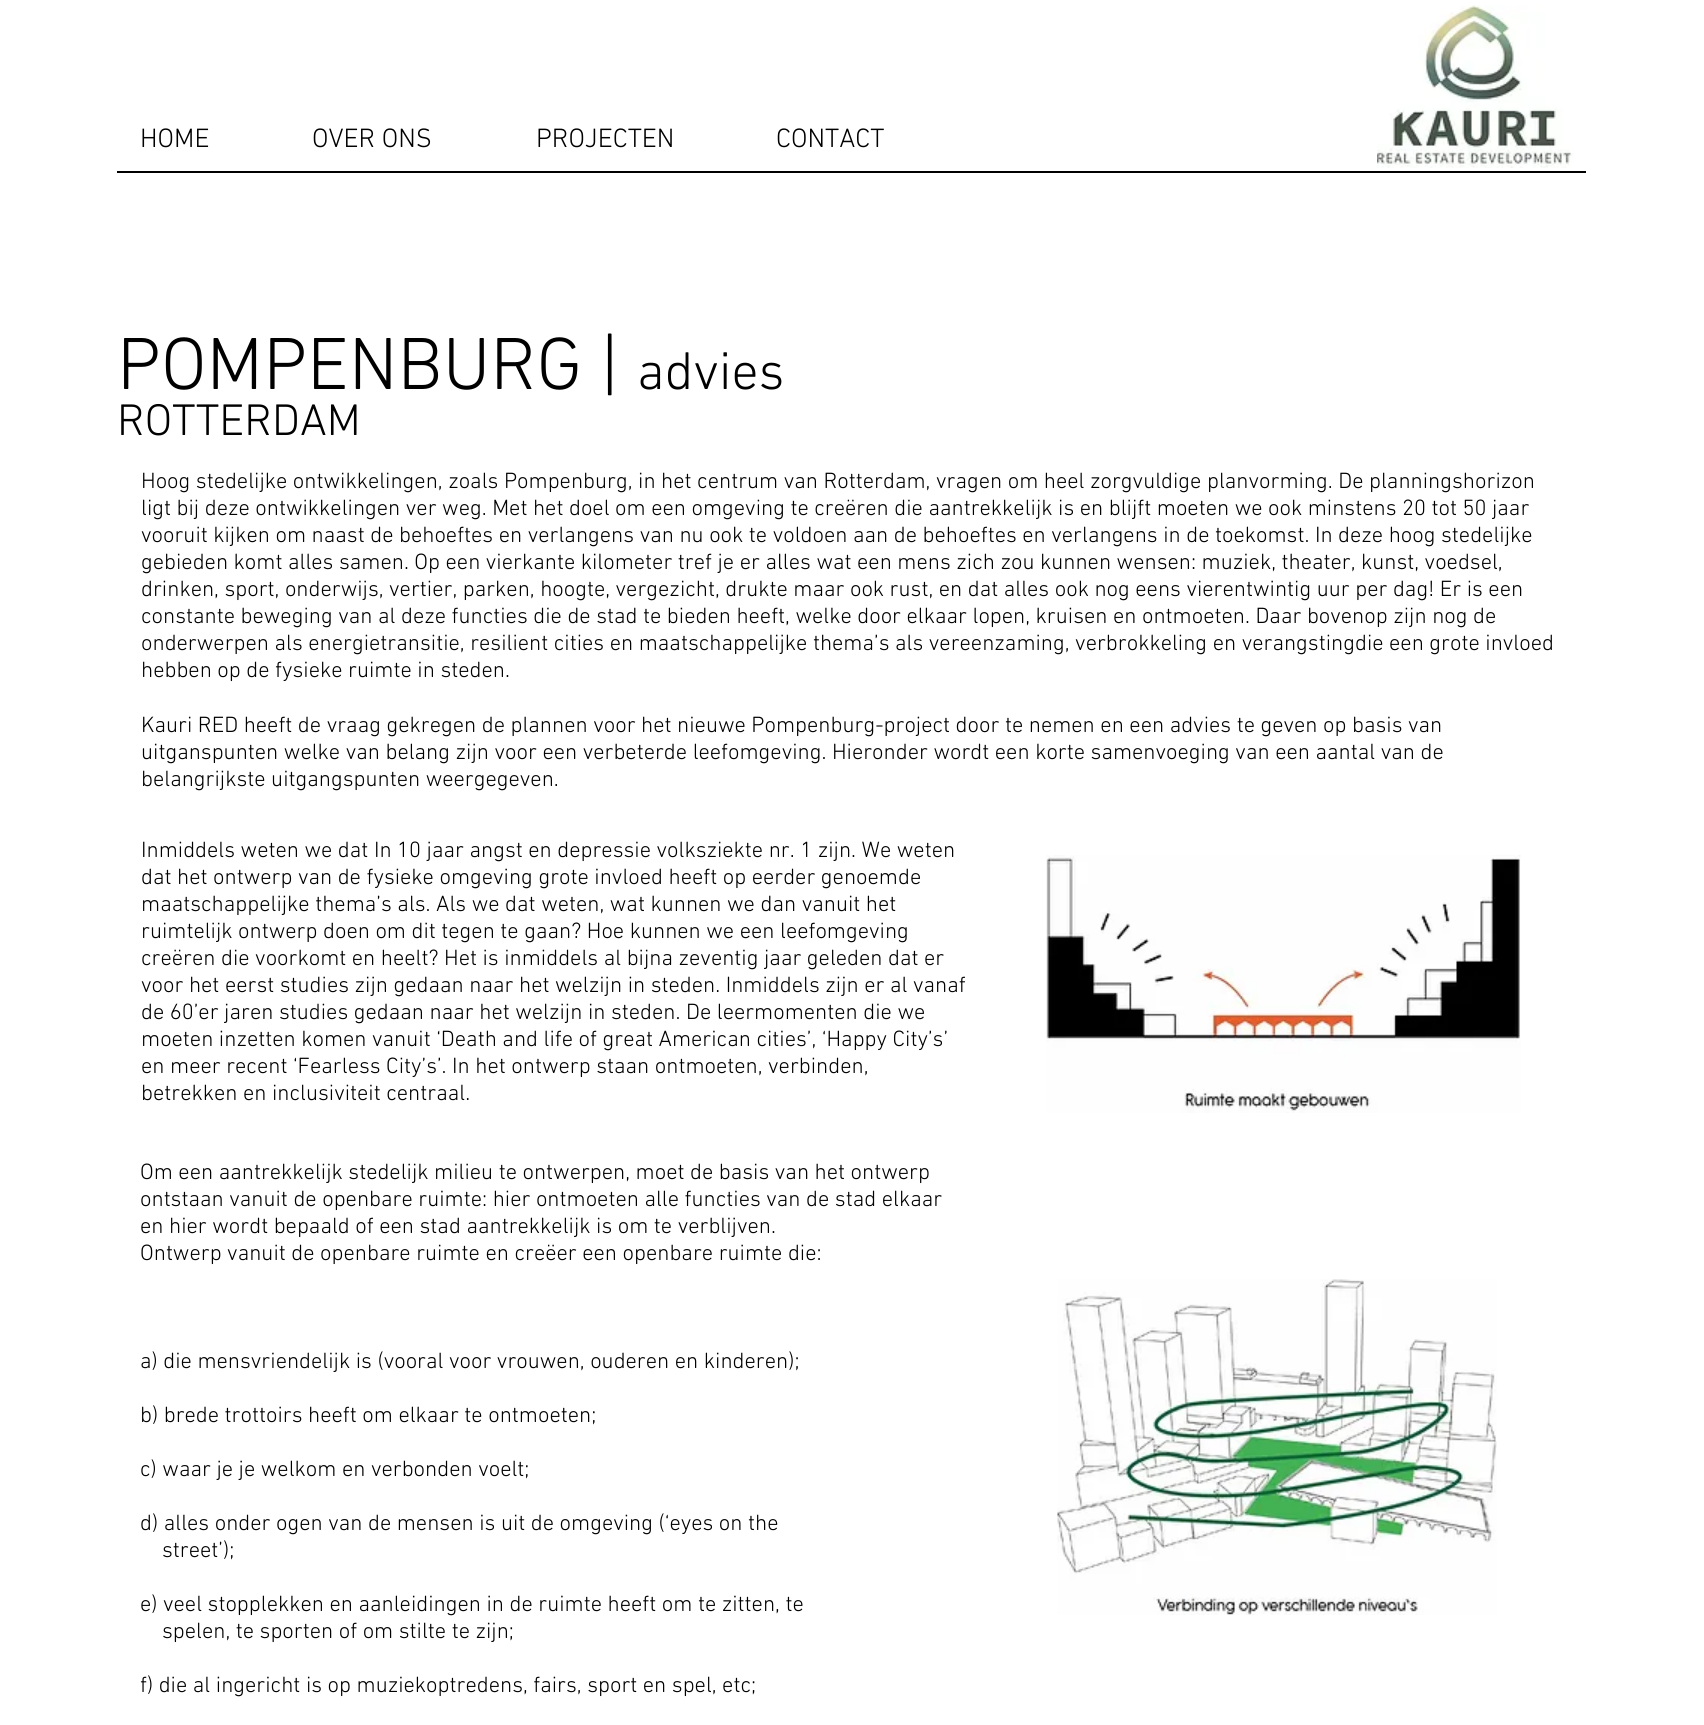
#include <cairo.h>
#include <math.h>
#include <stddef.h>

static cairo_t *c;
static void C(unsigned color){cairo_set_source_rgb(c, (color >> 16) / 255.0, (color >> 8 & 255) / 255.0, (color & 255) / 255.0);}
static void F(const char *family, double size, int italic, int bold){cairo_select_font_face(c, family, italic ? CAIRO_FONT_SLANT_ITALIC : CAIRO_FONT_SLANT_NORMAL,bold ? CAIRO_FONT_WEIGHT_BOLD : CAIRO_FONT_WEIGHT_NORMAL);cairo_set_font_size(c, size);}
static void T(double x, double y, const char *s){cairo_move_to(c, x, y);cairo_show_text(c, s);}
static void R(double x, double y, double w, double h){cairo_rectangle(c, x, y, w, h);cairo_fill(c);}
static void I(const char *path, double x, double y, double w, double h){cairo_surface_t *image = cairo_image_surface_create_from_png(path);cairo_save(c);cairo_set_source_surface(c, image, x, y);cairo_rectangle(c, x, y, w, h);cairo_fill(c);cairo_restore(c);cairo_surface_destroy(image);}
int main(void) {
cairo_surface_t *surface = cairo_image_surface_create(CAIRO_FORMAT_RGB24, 1704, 1725);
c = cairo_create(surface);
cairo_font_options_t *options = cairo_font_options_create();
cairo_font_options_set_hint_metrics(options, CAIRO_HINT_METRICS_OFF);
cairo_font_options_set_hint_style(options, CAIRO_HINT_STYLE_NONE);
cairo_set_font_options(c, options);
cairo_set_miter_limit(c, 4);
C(0xffffff);
cairo_paint(c);
F("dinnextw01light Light",27,0,0);
C(0x000000);
T(140,147,"HOME");
T(312,147,"OVER ONS");
T(536,147,"PROJECTEN");
T(776,147,"CONTACT");
I("1.png",1377,5,197,163);
R(117,171,1469,2);
F("dinnextw01light Light",75,0,0);
T(117,389,"POMPENBURG |");
F("dinnextw01light Light",54,0,0);
T(637,389,"advies");
F("dinnextw01light Light",45,0,0);
T(117,435,"ROTTERDAM");
F("dinnextw01light Light",22.5,0,0);
T(141,488,"Hoog stedelijke ontwikkelingen, zoals Pompenburg, in het centrum van Rotterdam, vragen om heel zorgvuldige planvorming. De planningshorizon");
T(141,515,"ligt bij deze ontwikkelingen ver weg. Met het doel om een omgeving te creëren die aantrekkelijk is en blijft moeten we ook minstens 20 tot 50 jaar");
T(141,542,"vooruit kijken om naast de behoeftes en verlangens van nu ook te voldoen aan de behoeftes en verlangens in de toekomst. In deze hoog stedelijke");
T(141,569,"gebieden komt alles samen. Op een vierkante kilometer tref je er alles wat een mens zich zou kunnen wensen: muziek, theater, kunst, voedsel,");
T(141,596,"drinken, sport, onderwijs, vertier, parken, hoogte, vergezicht, drukte maar ook rust, en dat alles ook nog eens vierentwintig uur per dag! Er is een");
T(141,623,"constante beweging van al deze functies die de stad te bieden heeft, welke door elkaar lopen, kruisen en ontmoeten. Daar bovenop zijn nog de");
T(141,650,"onderwerpen als energietransitie, resilient cities en maatschappelijke thema’s als vereenzaming, verbrokkeling en verangstingdie een grote invloed");
T(141,677,"hebben op de fysieke ruimte in steden.");
T(141,732,"Kauri RED heeft de vraag gekregen de plannen voor het nieuwe Pompenburg-project door te nemen en een advies te geven op basis van");
T(141,759,"uitganspunten welke van belang zijn voor een verbeterde leefomgeving. Hieronder wordt een korte samenvoeging van een aantal van de");
T(141,786,"belangrijkste uitgangspunten weergegeven.");
T(141,857,"Inmiddels weten we dat In 10 jaar angst en depressie volksziekte nr. 1 zijn. We weten");
T(141,884,"dat het ontwerp van de fysieke omgeving grote invloed heeft op eerder genoemde");
T(141,911,"maatschappelijke thema’s als. Als we dat weten, wat kunnen we dan vanuit het");
T(141,938,"ruimtelijk ontwerp doen om dit tegen te gaan? Hoe kunnen we een leefomgeving");
T(141,965,"creëren die voorkomt en heelt? Het is inmiddels al bijna zeventig jaar geleden dat er");
T(141,992,"voor het eerst studies zijn gedaan naar het welzijn in steden. Inmiddels zijn er al vanaf");
T(141,1019,"de 60’er jaren studies gedaan naar het welzijn in steden. De leermomenten die we");
T(141,1046,"moeten inzetten komen vanuit ‘Death and life of great American cities’, ‘Happy City’s’");
T(141,1073,"en meer recent ‘Fearless City’s’. In het ontwerp staan ontmoeten, verbinden,");
T(141,1100,"betrekken en inclusiviteit centraal.");
I("2.png",1046,855,475,258);
T(140,1179,"Om een aantrekkelijk stedelijk milieu te ontwerpen, moet de basis van het ontwerp");
T(140,1206,"ontstaan vanuit de openbare ruimte: hier ontmoeten alle functies van de stad elkaar");
T(140,1233,"en hier wordt bepaald of een stad aantrekkelijk is om te verblijven.");
T(140,1260,"Ontwerp vanuit de openbare ruimte en creëer een openbare ruimte die:");
T(140,1368,"a) die mensvriendelijk is (vooral voor vrouwen, ouderen en kinderen);");
T(140,1422,"b) brede trottoirs heeft om elkaar te ontmoeten;");
T(140,1476,"c) waar je je welkom en verbonden voelt;");
T(140,1530,"d) alles onder ogen van de mensen is uit de omgeving (‘eyes on the");
T(162,1557,"street’);");
T(140,1611,"e) veel stopplekken en aanleidingen in de ruimte heeft om te zitten, te");
T(162,1638,"spelen, te sporten of om stilte te zijn;");
T(140,1692,"f) die al ingericht is op muziekoptredens, fairs, sport en spel, etc;");
I("3.png",1057,1279,440,336);
cairo_surface_write_to_png(surface, "o.png");
cairo_font_options_destroy(options);
cairo_destroy(c);
cairo_surface_destroy(surface);
return 0;
}
